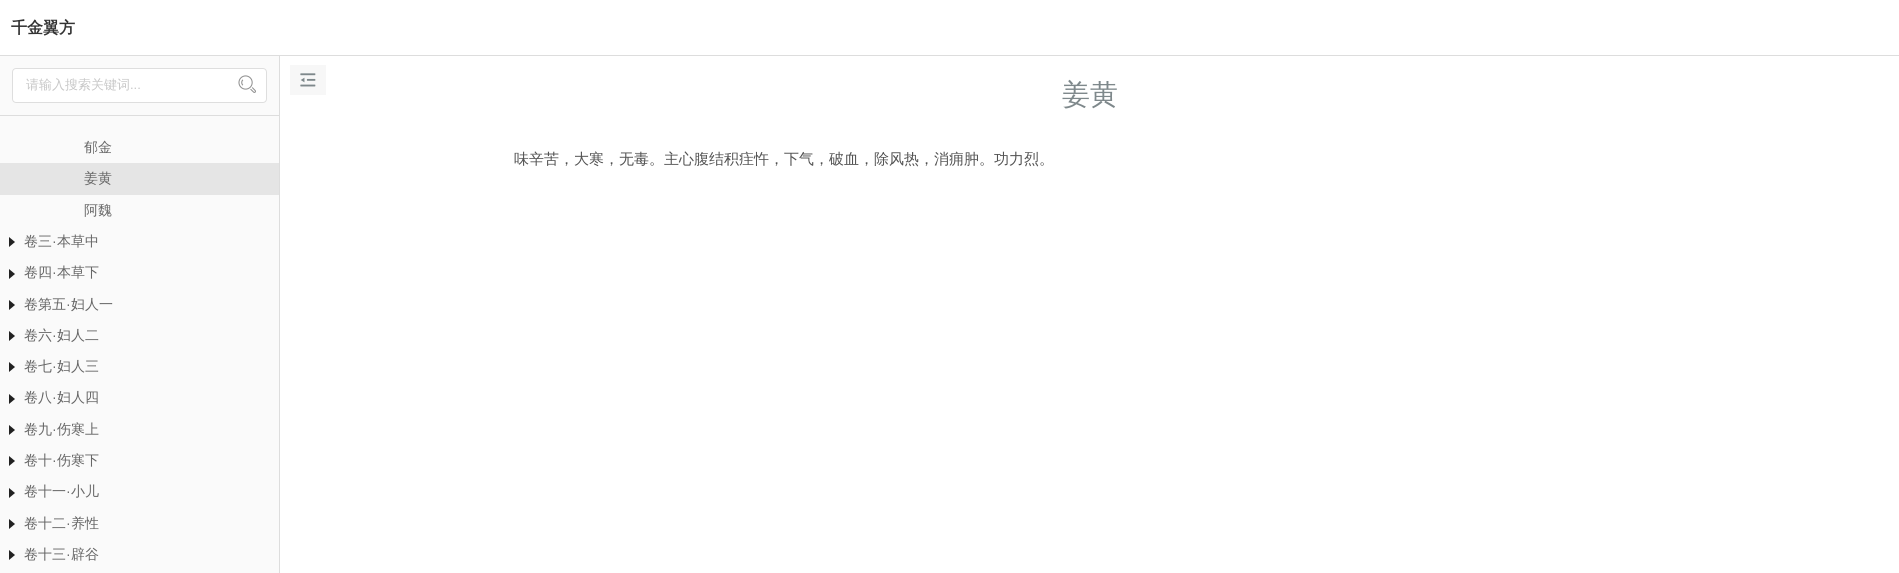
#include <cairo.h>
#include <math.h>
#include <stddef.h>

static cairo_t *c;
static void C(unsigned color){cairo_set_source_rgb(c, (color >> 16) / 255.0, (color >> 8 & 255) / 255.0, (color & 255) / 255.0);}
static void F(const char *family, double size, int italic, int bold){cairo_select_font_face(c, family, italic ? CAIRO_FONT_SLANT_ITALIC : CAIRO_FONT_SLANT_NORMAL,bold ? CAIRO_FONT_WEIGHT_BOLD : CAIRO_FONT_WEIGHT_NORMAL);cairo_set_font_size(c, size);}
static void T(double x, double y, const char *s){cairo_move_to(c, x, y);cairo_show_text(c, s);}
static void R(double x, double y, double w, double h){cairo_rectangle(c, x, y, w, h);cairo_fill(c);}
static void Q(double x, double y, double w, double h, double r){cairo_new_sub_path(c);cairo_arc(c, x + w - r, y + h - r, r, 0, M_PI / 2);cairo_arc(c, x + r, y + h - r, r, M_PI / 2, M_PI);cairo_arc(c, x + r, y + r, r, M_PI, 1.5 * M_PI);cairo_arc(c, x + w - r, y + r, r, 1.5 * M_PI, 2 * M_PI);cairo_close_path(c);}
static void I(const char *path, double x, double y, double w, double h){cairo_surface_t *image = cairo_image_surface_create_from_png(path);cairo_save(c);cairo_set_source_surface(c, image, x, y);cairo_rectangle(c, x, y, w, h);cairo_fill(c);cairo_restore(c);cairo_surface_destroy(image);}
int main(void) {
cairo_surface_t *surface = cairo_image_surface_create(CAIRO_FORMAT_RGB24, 1899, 573);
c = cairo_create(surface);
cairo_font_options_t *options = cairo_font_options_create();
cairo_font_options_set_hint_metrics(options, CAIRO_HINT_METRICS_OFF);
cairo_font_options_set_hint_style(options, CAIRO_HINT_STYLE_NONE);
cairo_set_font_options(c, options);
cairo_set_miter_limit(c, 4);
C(0xffffff);
cairo_paint(c);
C(0xdddddd);
R(0,55,1899,1);
F("WenQuanYi Zen Hei",16,0,1);
C(0x333333);
T(11,33,"千金翼方");
C(0xfafafa);
R(0,56,279,517);
C(0xdddddd);
R(279,56,1,517);
R(0,115,279,1);
C(0xffffff);
Q(12.5,68.5,254,34,3.5);
cairo_fill_preserve(c);
C(0xdedede);
cairo_set_line_width(c,1);
cairo_stroke(c);
F("WenQuanYi Zen Hei Medium",13,0,0);
C(0xc7c7c7);
T(26,89,"请输入搜索关键词");
F("Liberation Sans",13,0,0);
T(130,89,"...");
I("1.png",238,75,18,18);
F("WenQuanYi Zen Hei Medium",14,0,0);
C(0x666666);
T(84,152,"郁金");
C(0xe5e5e5);
R(0,163,279,32);
C(0x666666);
T(84,183,"姜黄");
T(84,215,"阿魏");
C(0x212121);
cairo_new_path(c);
cairo_move_to(c,9,237);
cairo_line_to(c,15,242);
cairo_line_to(c,9,247);
cairo_close_path(c);
cairo_move_to(c,9,269);
cairo_line_to(c,15,274);
cairo_line_to(c,9,279);
cairo_close_path(c);
cairo_fill(c);
C(0x666666);
T(24,246,"卷三");
F("Liberation Sans",14,0,0);
T(52,246,"·");
F("WenQuanYi Zen Hei Medium",14,0,0);
T(57,246,"本草中");
T(24,277,"卷四");
F("Liberation Sans",14,0,0);
T(52,277,"·");
F("WenQuanYi Zen Hei Medium",14,0,0);
T(57,277,"本草下");
C(0x212121);
cairo_new_path(c);
cairo_move_to(c,9,300);
cairo_line_to(c,15,305);
cairo_line_to(c,9,310);
cairo_close_path(c);
cairo_move_to(c,9,331);
cairo_line_to(c,15,336);
cairo_line_to(c,9,341);
cairo_close_path(c);
cairo_fill(c);
C(0x666666);
T(24,309,"卷第五");
F("Liberation Sans",14,0,0);
T(66,309,"·");
F("WenQuanYi Zen Hei Medium",14,0,0);
T(71,309,"妇人一");
T(24,340,"卷六");
F("Liberation Sans",14,0,0);
T(52,340,"·");
F("WenQuanYi Zen Hei Medium",14,0,0);
T(57,340,"妇人二");
C(0x212121);
cairo_new_path(c);
cairo_move_to(c,9,362);
cairo_line_to(c,15,367);
cairo_line_to(c,9,372);
cairo_close_path(c);
cairo_move_to(c,9,394);
cairo_line_to(c,15,399);
cairo_line_to(c,9,404);
cairo_close_path(c);
cairo_fill(c);
C(0x666666);
T(24,371,"卷七");
F("Liberation Sans",14,0,0);
T(52,371,"·");
F("WenQuanYi Zen Hei Medium",14,0,0);
T(57,371,"妇人三");
T(24,402,"卷八");
F("Liberation Sans",14,0,0);
T(52,402,"·");
F("WenQuanYi Zen Hei Medium",14,0,0);
T(57,402,"妇人四");
C(0x212121);
cairo_new_path(c);
cairo_move_to(c,9,425);
cairo_line_to(c,15,430);
cairo_line_to(c,9,435);
cairo_close_path(c);
cairo_move_to(c,9,456);
cairo_line_to(c,15,461);
cairo_line_to(c,9,466);
cairo_close_path(c);
cairo_fill(c);
C(0x666666);
T(24,434,"卷九");
F("Liberation Sans",14,0,0);
T(52,434,"·");
F("WenQuanYi Zen Hei Medium",14,0,0);
T(57,434,"伤寒上");
T(24,465,"卷十");
F("Liberation Sans",14,0,0);
T(52,465,"·");
F("WenQuanYi Zen Hei Medium",14,0,0);
T(57,465,"伤寒下");
C(0x212121);
cairo_new_path(c);
cairo_move_to(c,9,488);
cairo_line_to(c,15,493);
cairo_line_to(c,9,498);
cairo_close_path(c);
cairo_move_to(c,9,519);
cairo_line_to(c,15,524);
cairo_line_to(c,9,529);
cairo_close_path(c);
cairo_fill(c);
C(0x666666);
T(24,496,"卷十一");
F("Liberation Sans",14,0,0);
T(66,496,"·");
F("WenQuanYi Zen Hei Medium",14,0,0);
T(71,496,"小儿");
T(24,528,"卷十二");
F("Liberation Sans",14,0,0);
T(66,528,"·");
F("WenQuanYi Zen Hei Medium",14,0,0);
T(71,528,"养性");
C(0x212121);
cairo_new_path(c);
cairo_move_to(c,9,550);
cairo_line_to(c,15,555);
cairo_line_to(c,9,560);
cairo_close_path(c);
cairo_fill(c);
C(0x666666);
T(24,559,"卷十三");
F("Liberation Sans",14,0,0);
T(66,559,"·");
F("WenQuanYi Zen Hei Medium",14,0,0);
T(71,559,"辟谷");
C(0xf7f7f7);
R(290,65,36,30);
I("2.png",300,73,16,14);
F("WenQuanYi Zen Hei Medium",28,0,0);
C(0x7e888b);
T(1062,104,"姜黄");
F("WenQuanYi Zen Hei Medium",15,0,0);
C(0x525252);
T(514,164,"味辛苦，大寒，无毒。主心腹结积疰忤，下气，破血，除风热，消痈肿。功力烈。");
cairo_surface_write_to_png(surface, "o.png");
cairo_font_options_destroy(options);
cairo_destroy(c);
cairo_surface_destroy(surface);
return 0;
}
